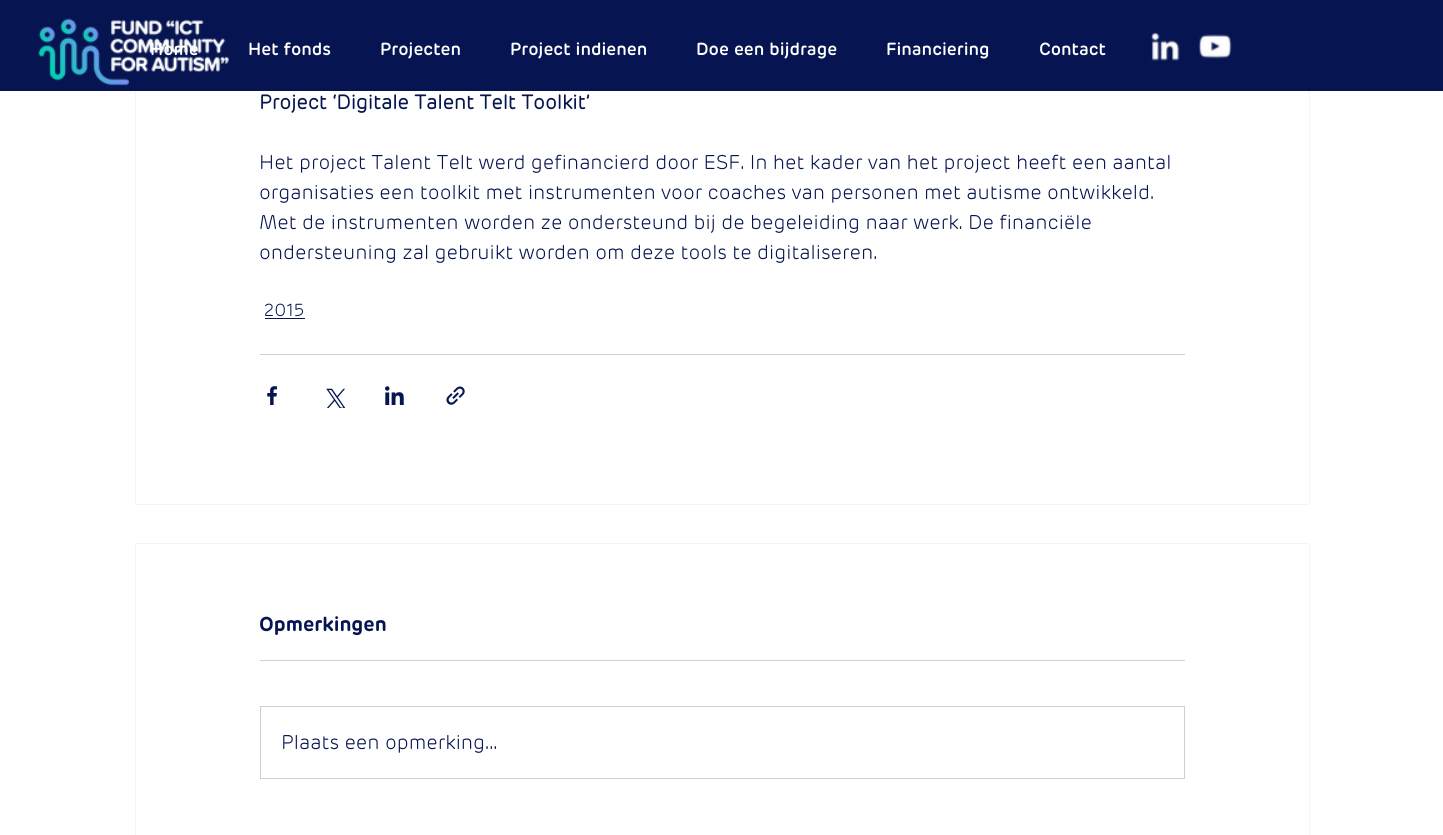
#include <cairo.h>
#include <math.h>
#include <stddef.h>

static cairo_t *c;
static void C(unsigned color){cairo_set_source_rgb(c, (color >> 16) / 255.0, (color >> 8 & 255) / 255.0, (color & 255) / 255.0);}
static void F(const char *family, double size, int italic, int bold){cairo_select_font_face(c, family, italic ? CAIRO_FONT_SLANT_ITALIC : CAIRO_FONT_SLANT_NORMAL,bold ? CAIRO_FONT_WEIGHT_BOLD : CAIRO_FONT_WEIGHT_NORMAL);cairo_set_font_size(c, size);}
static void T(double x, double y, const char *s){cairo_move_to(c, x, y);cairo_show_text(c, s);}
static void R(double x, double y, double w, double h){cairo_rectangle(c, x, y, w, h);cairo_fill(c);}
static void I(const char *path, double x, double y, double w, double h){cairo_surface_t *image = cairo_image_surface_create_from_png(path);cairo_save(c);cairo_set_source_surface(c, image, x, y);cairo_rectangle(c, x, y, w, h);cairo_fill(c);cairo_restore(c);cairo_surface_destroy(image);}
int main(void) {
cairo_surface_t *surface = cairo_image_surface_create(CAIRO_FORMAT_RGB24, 1443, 835);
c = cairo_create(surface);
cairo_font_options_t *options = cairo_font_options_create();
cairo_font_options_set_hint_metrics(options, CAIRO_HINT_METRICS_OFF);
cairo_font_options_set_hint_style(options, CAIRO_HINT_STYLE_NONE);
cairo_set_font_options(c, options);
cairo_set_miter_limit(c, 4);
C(0xffffff);
cairo_paint(c);
cairo_rectangle(c,135.5,-.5,1174,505);
C(0xf4f4f4);
cairo_set_line_width(c,1);
cairo_stroke(c);
C(0x061551);
R(0,0,1443,91);
I("1.png",38,18,191,68);
F("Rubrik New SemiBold",17.5,0,0);
C(0xffffff);
T(150,55,"Home");
T(248,55,"Het fonds");
T(380,55,"Projecten");
T(510,55,"Project indienen");
T(696,55,"Doe een bijdrage");
T(886,55,"Financiering");
T(1039,55,"Contact");
I("2.png",1151,32,29,29);
I("3.png",1198,34,34,25);
F("Rubrik New",20,0,1);
C(0x061551);
T(259,109,"Project ‘Digitale Talent Telt Toolkit’");
F("Rubrik New Light",20,0,0);
T(259,169,"Het project Talent Telt werd gefinancierd door ESF. In het kader van het project heeft een aantal");
T(259,199,"organisaties een toolkit met instrumenten voor coaches van personen met autisme ontwikkeld.");
T(259,229,"Met de instrumenten worden ze ondersteund bij de begeleiding naar werk. De financiële");
T(259,259,"ondersteuning zal gebruikt worden om deze tools te digitaliseren.");
F("Rubrik New Light",17.5,0,0);
T(264,316,"2015");
R(265,318,40,1);
C(0xcdd0dc);
R(260,354,925,1);
I("4.png",267,386,10,19);
I("5.png",326,388,19,20);
I("6.png",385,386,19,19);
I("7.png",446,386,19,19);
cairo_rectangle(c,135.5,543.5,1174,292);
C(0xf4f4f4);
cairo_stroke(c);
F("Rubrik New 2",20,0,1);
C(0x061551);
T(259,631,"Opmerkingen");
C(0xcdd0dc);
R(260,660,925,1);
cairo_rectangle(c,260.5,706.5,924,72);
C(0xcfcfcf);
cairo_stroke(c);
F("Rubrik New Light",20,0,0);
C(0x061551);
T(281,749,"Plaats een opmerking...");
cairo_surface_write_to_png(surface, "o.png");
cairo_font_options_destroy(options);
cairo_destroy(c);
cairo_surface_destroy(surface);
return 0;
}
